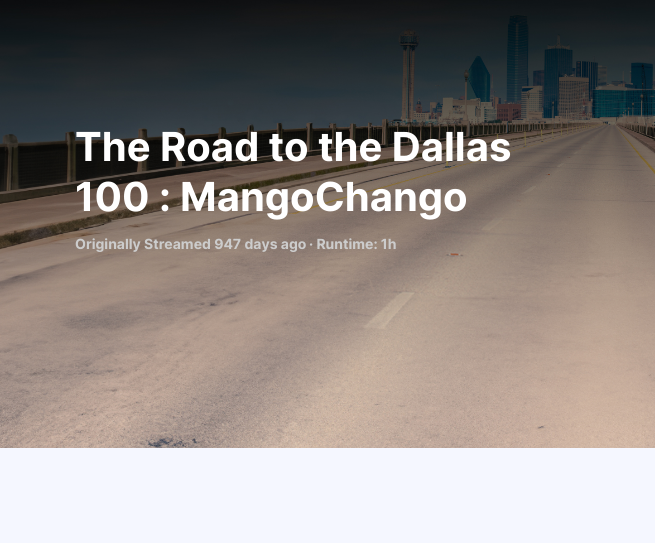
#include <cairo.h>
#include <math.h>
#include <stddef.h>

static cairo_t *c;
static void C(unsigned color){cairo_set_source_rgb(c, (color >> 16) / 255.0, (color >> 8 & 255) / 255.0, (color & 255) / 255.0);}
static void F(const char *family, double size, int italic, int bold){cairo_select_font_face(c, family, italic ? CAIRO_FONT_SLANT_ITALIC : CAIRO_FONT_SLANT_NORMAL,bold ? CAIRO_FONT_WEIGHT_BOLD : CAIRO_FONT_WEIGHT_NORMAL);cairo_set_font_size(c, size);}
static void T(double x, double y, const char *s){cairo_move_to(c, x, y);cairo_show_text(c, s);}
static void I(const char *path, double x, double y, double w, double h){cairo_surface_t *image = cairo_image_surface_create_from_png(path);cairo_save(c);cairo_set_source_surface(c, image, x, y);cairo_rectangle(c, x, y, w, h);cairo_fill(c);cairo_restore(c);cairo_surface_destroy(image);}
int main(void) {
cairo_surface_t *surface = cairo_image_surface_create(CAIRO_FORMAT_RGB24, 655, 543);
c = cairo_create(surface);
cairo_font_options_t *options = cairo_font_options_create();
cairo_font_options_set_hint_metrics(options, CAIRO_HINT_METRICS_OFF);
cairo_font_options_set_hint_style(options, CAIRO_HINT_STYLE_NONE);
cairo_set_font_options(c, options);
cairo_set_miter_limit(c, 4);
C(0xf5f7ff);
cairo_paint(c);
I("1.png",0,0,655,448);
F("Inter",40,0,1);
C(0xffffff);
T(75,161,"The Road to the Dallas");
T(75,211,"100 : MangoChango");
F("Inter",14,0,1);
C(0xcccccc);
T(75,249,"Originally Streamed 947 days ago");
T(309,249,"· Runtime: 1h");
cairo_surface_write_to_png(surface, "o.png");
cairo_font_options_destroy(options);
cairo_destroy(c);
cairo_surface_destroy(surface);
return 0;
}
